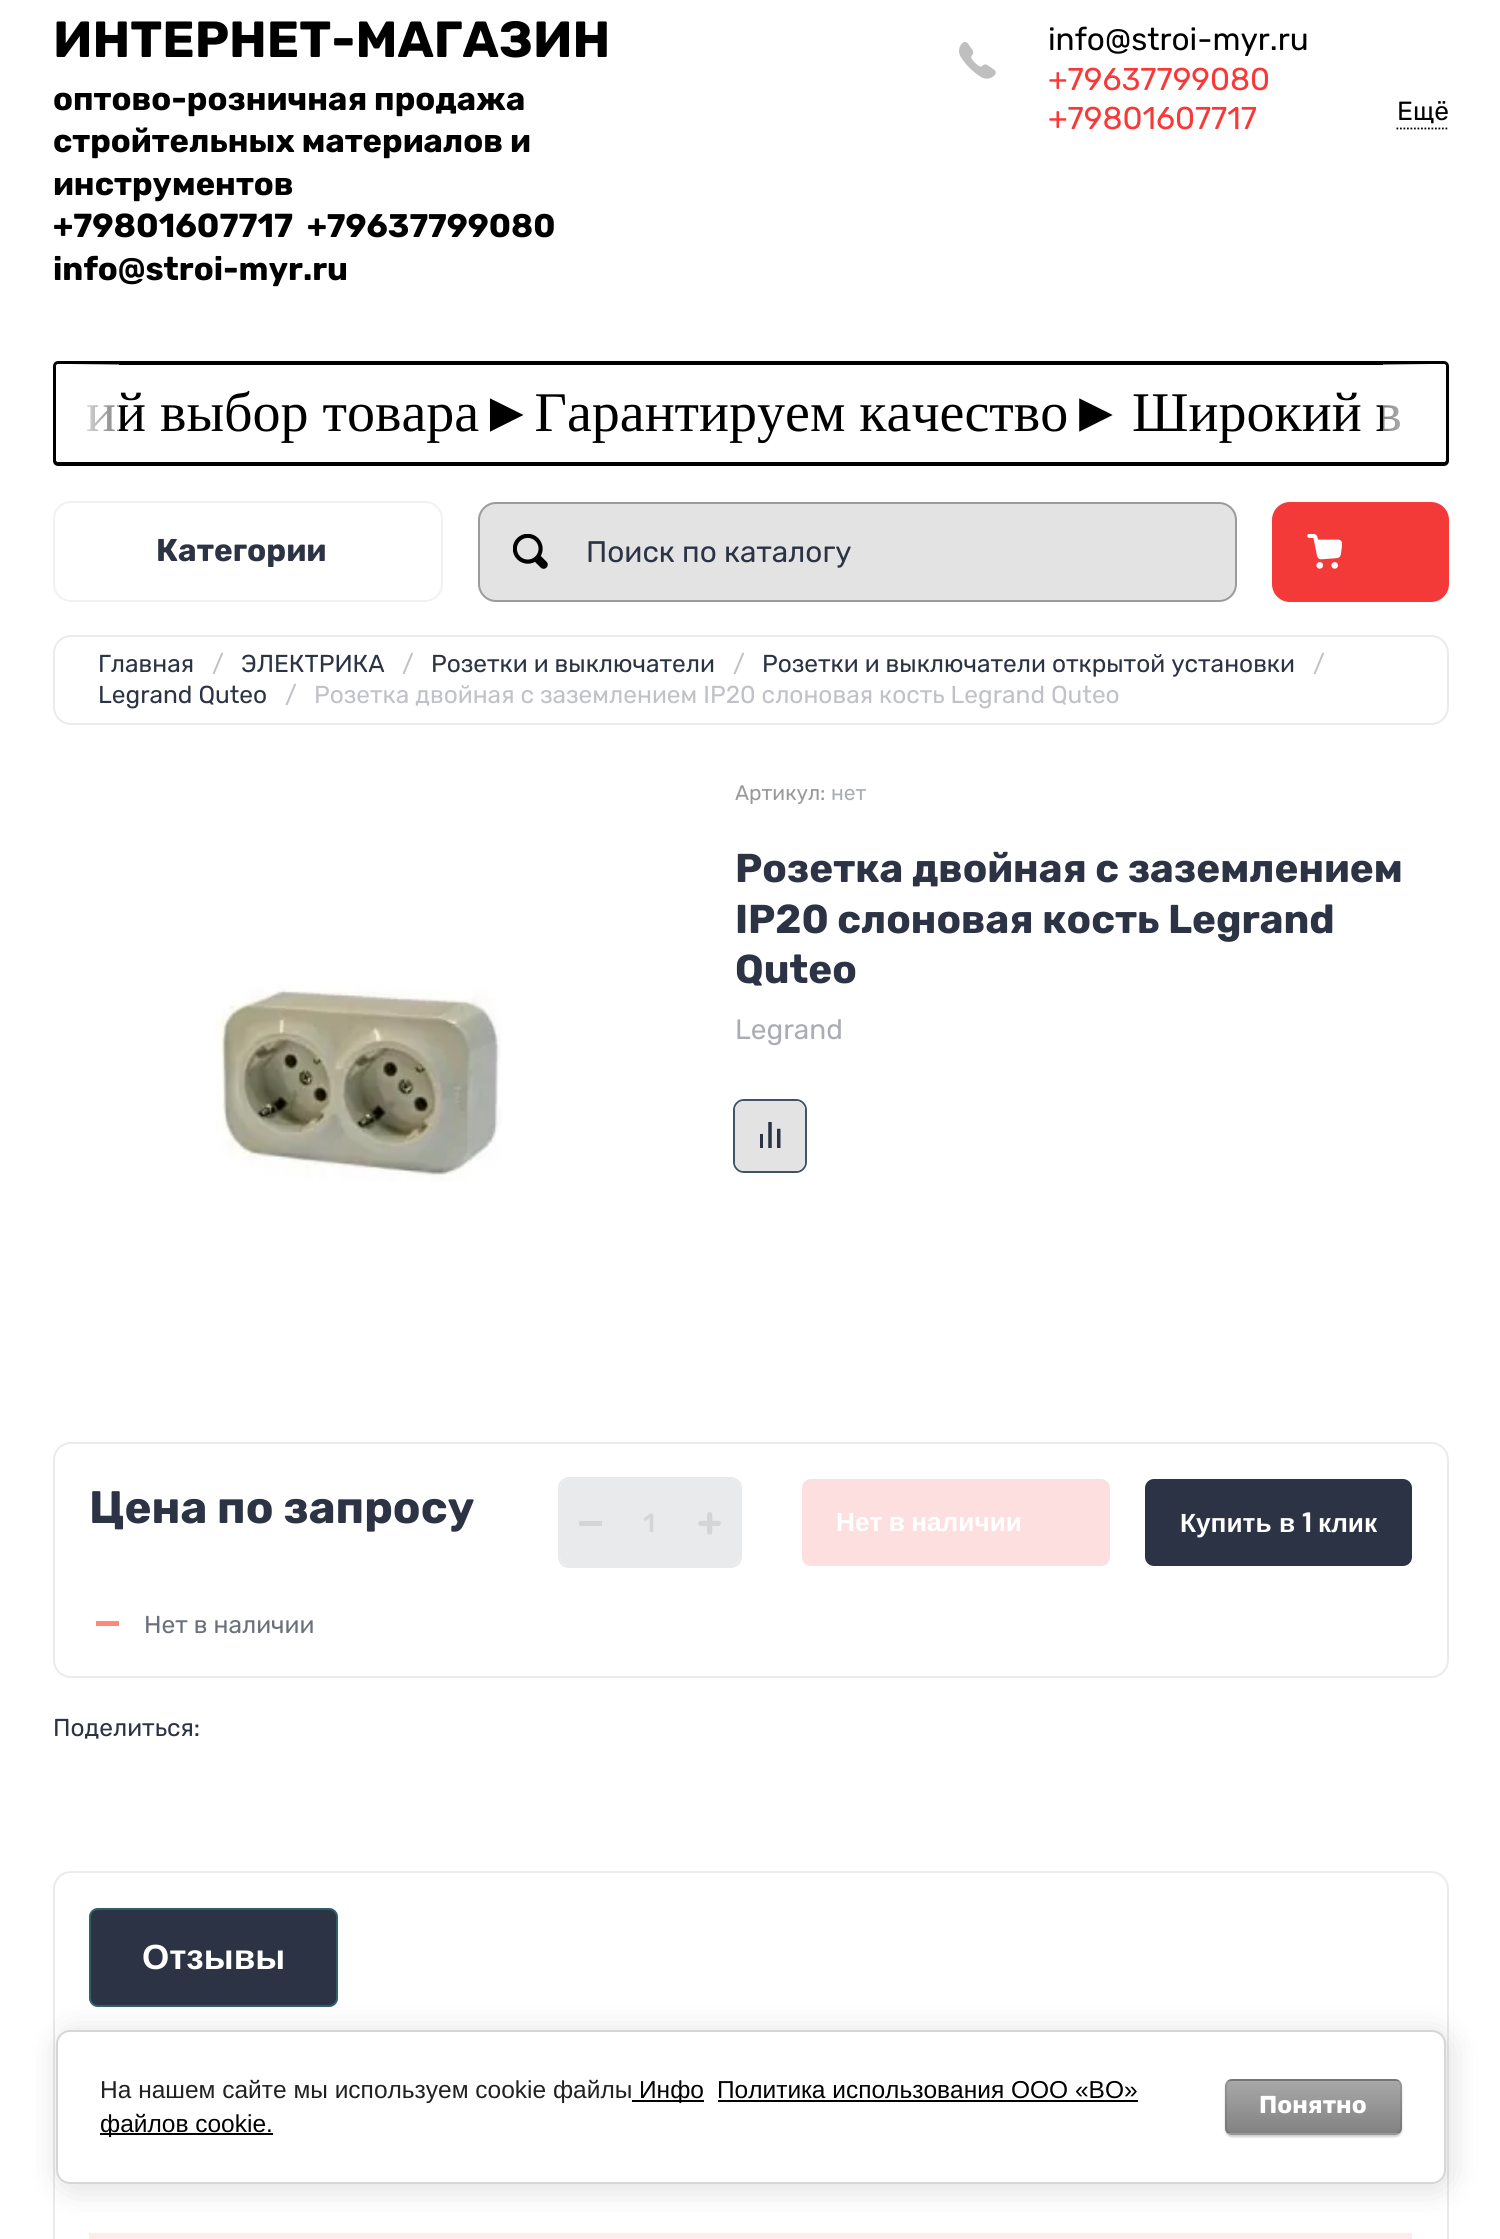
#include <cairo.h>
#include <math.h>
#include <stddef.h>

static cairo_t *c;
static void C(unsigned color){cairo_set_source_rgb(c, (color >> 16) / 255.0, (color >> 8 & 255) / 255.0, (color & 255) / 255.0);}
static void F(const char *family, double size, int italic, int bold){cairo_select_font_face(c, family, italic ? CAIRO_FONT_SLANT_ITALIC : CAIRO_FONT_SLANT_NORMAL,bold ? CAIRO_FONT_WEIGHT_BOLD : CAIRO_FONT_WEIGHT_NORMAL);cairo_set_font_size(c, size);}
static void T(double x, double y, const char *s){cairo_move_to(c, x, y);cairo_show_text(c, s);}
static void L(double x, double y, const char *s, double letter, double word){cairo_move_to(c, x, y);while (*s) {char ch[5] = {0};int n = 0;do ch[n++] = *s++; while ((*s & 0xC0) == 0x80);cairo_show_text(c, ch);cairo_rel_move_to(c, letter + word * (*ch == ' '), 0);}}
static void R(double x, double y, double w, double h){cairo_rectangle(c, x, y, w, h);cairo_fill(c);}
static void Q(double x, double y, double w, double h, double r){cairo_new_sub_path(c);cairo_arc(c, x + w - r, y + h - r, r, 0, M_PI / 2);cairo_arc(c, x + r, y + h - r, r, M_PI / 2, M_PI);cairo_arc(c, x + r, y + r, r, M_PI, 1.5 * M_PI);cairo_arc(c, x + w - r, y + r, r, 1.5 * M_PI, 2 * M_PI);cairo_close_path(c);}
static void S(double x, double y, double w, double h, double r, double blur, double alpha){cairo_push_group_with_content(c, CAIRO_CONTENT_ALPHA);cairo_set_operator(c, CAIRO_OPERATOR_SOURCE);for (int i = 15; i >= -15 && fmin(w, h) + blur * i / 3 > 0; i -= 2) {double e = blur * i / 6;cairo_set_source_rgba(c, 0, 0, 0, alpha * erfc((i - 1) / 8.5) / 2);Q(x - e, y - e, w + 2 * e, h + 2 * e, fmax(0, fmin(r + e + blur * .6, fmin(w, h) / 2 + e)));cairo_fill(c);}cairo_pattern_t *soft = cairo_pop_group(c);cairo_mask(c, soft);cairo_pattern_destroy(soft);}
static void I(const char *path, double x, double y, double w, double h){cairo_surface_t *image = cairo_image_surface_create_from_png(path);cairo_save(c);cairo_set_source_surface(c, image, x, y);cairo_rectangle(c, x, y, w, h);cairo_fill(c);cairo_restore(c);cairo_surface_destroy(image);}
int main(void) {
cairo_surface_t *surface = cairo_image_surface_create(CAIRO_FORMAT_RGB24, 1500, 2239);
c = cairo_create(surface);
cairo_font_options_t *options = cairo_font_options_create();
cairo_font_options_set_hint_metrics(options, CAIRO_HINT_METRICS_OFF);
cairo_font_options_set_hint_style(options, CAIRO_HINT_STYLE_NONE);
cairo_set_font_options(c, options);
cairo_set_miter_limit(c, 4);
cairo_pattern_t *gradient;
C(0xffffff);
cairo_paint(c);
F("Rubik",50.75,0,1);
C(0x000000);
T(53,57,"ИНТЕРНЕТ-МАГАЗИН");
F("Rubik",32.7,0,1);
T(53,110,"оптово-розничная продажа");
T(53,152,"стройтельных материалов и");
T(53,195,"инструментов");
F("Rubik",33.25,0,1);
T(53,237,"+79801607717");
F("Rubik",32.7,0,1);
T(307,237,"+79637799080");
T(53,280,"info@stroi-myr.ru");
I("1.png",959,42,37,37);
F("Rubik",31.5,0,0);
T(1048,50,"info@stroi-myr.ru");
C(0xfa3838);
T(1048,90,"+79637799080");
T(1048,129,"+79801607717");
cairo_new_path(c);
cairo_move_to(c,1396.5,128.5);
cairo_line_to(c,1449,128.5);
C(0x000000);
cairo_set_line_width(c,1.8);
cairo_set_dash(c,(double[]){1.75,1.75},2,0);
cairo_stroke(c);
F("Rubik",26.25,0,0);
T(1397,120,"Ещё");
Q(55,363,1392,101,3);
cairo_set_line_width(c,4);
cairo_set_dash(c,NULL,0,0);
cairo_stroke(c);
F("Liberation Serif",56,0,0);
T(86,431,"ий выбор товара►Гарантируем качество►");
cairo_set_source_rgba(c,1,1,1,0.5);
cairo_new_path(c);
cairo_move_to(c,58,364);
cairo_line_to(c,119,364);
cairo_line_to(c,119,462);
cairo_line_to(c,58,462);
cairo_curve_to(c,57,462,56,461,56,460);
cairo_line_to(c,56,366);
cairo_curve_to(c,56,365,57,364,58,364);
cairo_close_path(c);
cairo_fill(c);
gradient = cairo_pattern_create_linear(70,417,119,417);
cairo_pattern_add_color_stop_rgba(gradient,0,1,1,1,1);
cairo_pattern_add_color_stop_rgba(gradient,1,1,1,1,0);
cairo_set_source(c,gradient);
cairo_pattern_destroy(gradient);
R(70,364,48,67);
C(0xffffff);
cairo_new_path(c);
cairo_move_to(c,58,364);
cairo_line_to(c,70,364);
cairo_line_to(c,70,462);
cairo_line_to(c,58,462);
cairo_curve_to(c,57,462,56,461,56,460);
cairo_line_to(c,56,366);
cairo_curve_to(c,56,365,57,364,58,364);
cairo_close_path(c);
cairo_fill(c);
C(0x000000);
T(1132,431,"Широкий в");
cairo_set_source_rgba(c,1,1,1,0.5);
cairo_new_path(c);
cairo_move_to(c,1383,364);
cairo_line_to(c,1444,364);
cairo_curve_to(c,1445,364,1446,365,1446,366);
cairo_line_to(c,1446,460);
cairo_curve_to(c,1446,461,1445,462,1444,462);
cairo_line_to(c,1383,462);
cairo_close_path(c);
cairo_fill(c);
gradient = cairo_pattern_create_linear(1383,417,1432,417);
cairo_pattern_add_color_stop_rgba(gradient,0,1,1,1,0);
cairo_pattern_add_color_stop_rgba(gradient,1,1,1,1,1);
cairo_set_source(c,gradient);
cairo_pattern_destroy(gradient);
R(1384,364,48,67);
C(0xffffff);
cairo_new_path(c);
cairo_move_to(c,1432,364);
cairo_line_to(c,1444,364);
cairo_curve_to(c,1445,364,1446,365,1446,366);
cairo_line_to(c,1446,460);
cairo_curve_to(c,1446,461,1445,462,1444,462);
cairo_line_to(c,1432,462);
cairo_close_path(c);
cairo_fill(c);
Q(54,502,388,99,17);
C(0xf0f1f2);
cairo_set_line_width(c,2);
cairo_stroke(c);
F("Rubik",31.5,0,1);
C(0x2c3345);
T(156,561,"Категории");
C(0xe3e3e3);
Q(479,503,757,98,17);
cairo_fill_preserve(c);
C(0x9b9b9b);
cairo_stroke(c);
I("2.png",513,534,35,35);
F("Rubik",29.75,0,0);
C(0x2c3345);
T(586,562,"Поиск по каталогу");
C(0xf43939);
Q(1272,502,177,100,18);
cairo_fill(c);
I("3.png",1307,534,35,35);
Q(54,636,1394,88,17);
C(0xeaebec);
cairo_stroke(c);
F("Rubik",24.5,0,0);
C(0x2c3345);
T(98,672,"Главная");
C(0xc0c2c7);
T(212,672,"/");
C(0x2c3345);
T(241,672,"ЭЛЕКТРИКА");
C(0xc0c2c7);
T(402,672,"/");
C(0x2c3345);
T(431,672,"Розетки и выключатели");
C(0xc0c2c7);
T(733,672,"/");
C(0x2c3345);
T(762,672,"Розетки и выключатели открытой установки");
C(0xc0c2c7);
T(1313,672,"/");
C(0x2c3345);
T(98,703,"Legrand Quteo");
C(0xc0c2c7);
T(285,703,"/");
T(314,703,"Розетка двойная с заземлением IP20 слоновая кость Legrand Quteo");
F("Rubik",21,0,0);
C(0x999999);
T(735,800,"Артикул:");
C(0xabadb5);
T(831,800,"нет");
F("Rubik",40.25,0,1);
C(0x2c3345);
T(735,882,"Розетка двойная с заземлением");
T(735,933,"IP20 слоновая кость Legrand");
T(735,983,"Quteo");
F("Rubik",28,0,0);
C(0xabadb5);
T(735,1039,"Legrand");
Q(734,1100,72,72,10);
C(0x415368);
cairo_stroke(c);
C(0xe3e3e3);
Q(735,1101,70,70,9);
cairo_fill(c);
I("4.png",760,1122,21,26);
I("5.png",216,984,286,198);
Q(54,1443,1394,234,17);
C(0xeaebec);
cairo_stroke(c);
F("Rubik",45.5,0,1);
C(0x2c3345);
T(89,1523,"Цена по запросу");
Q(559,1478,182,89,10);
C(0xe9eaec);
cairo_stroke(c);
Q(560,1479,180,87,9);
cairo_fill(c);
C(0xd5d5d5);
R(579,1521,23,5);
F("Rubik Medium",26.25,0,0);
T(643,1532,"1");
I("6.png",698,1512,23,23);
C(0xfddfdf);
Q(802,1479,308,87,9);
cairo_fill(c);
F("Liberation Sans",26.25,0,1);
C(0xffffff);
L(836,1531,"Нет в наличии",0,-1);
C(0x2c3345);
Q(1145,1479,267,87,9);
cairo_fill(c);
C(0xffffff);
T(1180,1532,"Купить в");
F("Exo",26.25,0,1);
T(1302,1532,"1");
F("Liberation Sans",26.25,0,1);
T(1318,1532,"клик");
C(0xff8979);
R(96,1621,23,5);
F("Rubik",24.5,0,0);
C(0x6b707d);
T(144,1633,"Нет в наличии");
C(0x2c3345);
T(53,1736,"Поделиться:");
Q(54,1872,1394,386,17);
C(0xeaebec);
cairo_stroke(c);
C(0x2c3345);
Q(89,1908,249,99,9);
cairo_fill(c);
Q(90,1909,247,97,8);
cairo_set_source_rgba(c,0.2,0.792,0.757,0.3);
cairo_stroke(c);
F("Liberation Sans",35,0,1);
C(0xffffff);
T(142,1969,"Отзывы");
C(0xfeebeb);
R(89,2233,1323,6);
C(0x000000);
S(60,2034,1389,154,14,16,.14);
C(0xffffff);
Q(57,2031,1388,152,13);
cairo_fill_preserve(c);
C(0xd6d6d6);
cairo_stroke(c);
F("Liberation Sans",24.5,0,0);
C(0x212121);
T(100,2098,"На нашем сайте мы используем cookie файлы");
C(0x000000);
R(632,2100,72,2);
T(639,2098,"Инфо");
T(717,2098,"Политика использования ООО «ВО»");
R(718,2100,420,2);
R(100,2133,173,2);
T(100,2132,"файлов cookie.");
C(0x000000);
S(1225,2081,177,56,7,1,.2);
cairo_save(c);
Q(1225,2079,177,56,7);
cairo_clip(c);
gradient = cairo_pattern_create_linear(1313,2028,1313,2081);
cairo_pattern_add_color_stop_rgba(gradient,0,0.659,0.659,0.659,1);
cairo_pattern_add_color_stop_rgba(gradient,1,0.51,0.51,0.51,1);
cairo_set_source(c,gradient);
cairo_pattern_destroy(gradient);
R(1225,2079,177,2);
gradient = cairo_pattern_create_linear(1313,2081,1313,2133);
cairo_pattern_add_color_stop_rgba(gradient,0,0.659,0.659,0.659,1);
cairo_pattern_add_color_stop_rgba(gradient,1,0.51,0.51,0.51,1);
cairo_set_source(c,gradient);
cairo_pattern_destroy(gradient);
R(1225,2081,177,52);
gradient = cairo_pattern_create_linear(1313,2133,1313,2186);
cairo_pattern_add_color_stop_rgba(gradient,0,0.659,0.659,0.659,1);
cairo_pattern_add_color_stop_rgba(gradient,1,0.51,0.51,0.51,1);
cairo_set_source(c,gradient);
cairo_pattern_destroy(gradient);
R(1225,2133,177,2);
cairo_restore(c);
Q(1226,2080,175,54,6);
cairo_set_source_rgba(c,0,0,0,0.1);
cairo_stroke(c);
F("Rubik",24.5,0,1);
C(0xffffff);
T(1259,2113,"Понятно");
cairo_surface_write_to_png(surface, "o.png");
cairo_font_options_destroy(options);
cairo_destroy(c);
cairo_surface_destroy(surface);
return 0;
}
